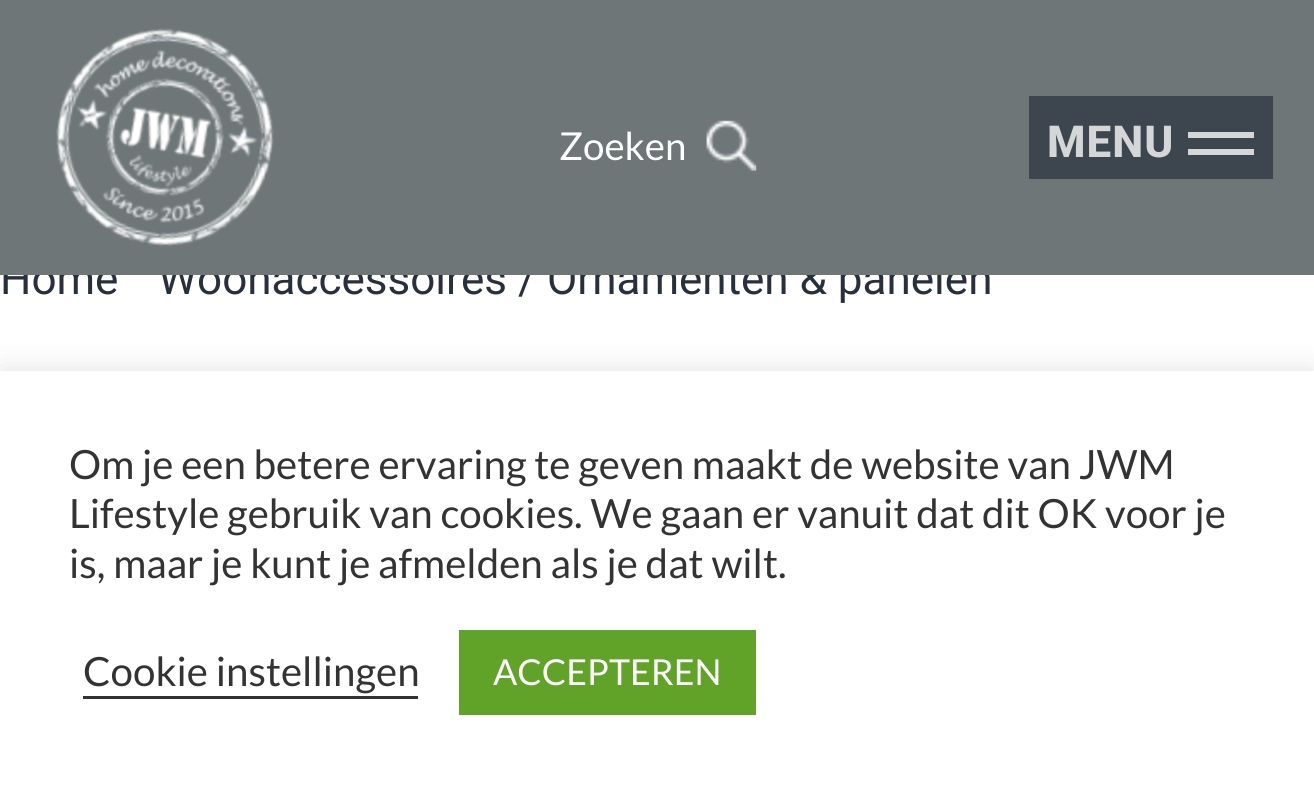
#include <cairo.h>
#include <math.h>
#include <stddef.h>

static cairo_t *c;
static void C(unsigned color){cairo_set_source_rgb(c, (color >> 16) / 255.0, (color >> 8 & 255) / 255.0, (color & 255) / 255.0);}
static void F(const char *family, double size, int italic, int bold){cairo_select_font_face(c, family, italic ? CAIRO_FONT_SLANT_ITALIC : CAIRO_FONT_SLANT_NORMAL,bold ? CAIRO_FONT_WEIGHT_BOLD : CAIRO_FONT_WEIGHT_NORMAL);cairo_set_font_size(c, size);}
static void T(double x, double y, const char *s){cairo_move_to(c, x, y);cairo_show_text(c, s);}
static void L(double x, double y, const char *s, double letter, double word){cairo_move_to(c, x, y);while (*s) {char ch[5] = {0};int n = 0;do ch[n++] = *s++; while ((*s & 0xC0) == 0x80);cairo_show_text(c, ch);cairo_rel_move_to(c, letter + word * (*ch == ' '), 0);}}
static void R(double x, double y, double w, double h){cairo_rectangle(c, x, y, w, h);cairo_fill(c);}
static void Q(double x, double y, double w, double h, double r){cairo_new_sub_path(c);cairo_arc(c, x + w - r, y + h - r, r, 0, M_PI / 2);cairo_arc(c, x + r, y + h - r, r, M_PI / 2, M_PI);cairo_arc(c, x + r, y + r, r, M_PI, 1.5 * M_PI);cairo_arc(c, x + w - r, y + r, r, 1.5 * M_PI, 2 * M_PI);cairo_close_path(c);}
static void S(double x, double y, double w, double h, double r, double blur, double alpha){cairo_push_group_with_content(c, CAIRO_CONTENT_ALPHA);cairo_set_operator(c, CAIRO_OPERATOR_SOURCE);for (int i = 15; i >= -15 && fmin(w, h) + blur * i / 3 > 0; i -= 2) {double e = blur * i / 6;cairo_set_source_rgba(c, 0, 0, 0, alpha * erfc((i - 1) / 8.5) / 2);Q(x - e, y - e, w + 2 * e, h + 2 * e, fmax(0, fmin(r + e + blur * .6, fmin(w, h) / 2 + e)));cairo_fill(c);}cairo_pattern_t *soft = cairo_pop_group(c);cairo_mask(c, soft);cairo_pattern_destroy(soft);}
static void I(const char *path, double x, double y, double w, double h){cairo_surface_t *image = cairo_image_surface_create_from_png(path);cairo_save(c);cairo_set_source_surface(c, image, x, y);cairo_rectangle(c, x, y, w, h);cairo_fill(c);cairo_restore(c);cairo_surface_destroy(image);}
int main(void) {
cairo_surface_t *surface = cairo_image_surface_create(CAIRO_FORMAT_RGB24, 1314, 796);
c = cairo_create(surface);
cairo_font_options_t *options = cairo_font_options_create();
cairo_font_options_set_hint_metrics(options, CAIRO_HINT_METRICS_OFF);
cairo_font_options_set_hint_style(options, CAIRO_HINT_STYLE_NONE);
cairo_set_font_options(c, options);
cairo_set_miter_limit(c, 4);
C(0xffffff);
cairo_paint(c);
F("Roboto",44,0,0);
C(0x28303d);
T(0,294,"Home");
T(158,294,"Woonaccessoires / Ornamenten & panelen");
C(0x6e7678);
R(0,0,1314,275);
I("1.png",56,28,218,219);
F("Lato",38.5,0,0);
C(0xffffff);
T(559,160,"Zoeken");
I("2.png",706,120,51,51);
C(0x3d454f);
R(1029,96,244,83);
F("Roboto ExtraBold",44,0,0);
C(0xd4d6d7);
L(1047,157,"MENU",1,0);
R(1188,132,66,6);
R(1188,149,66,6);
C(0xacabab);
S(0,369,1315,426,0,14,.3);
C(0xffffff);
R(0,371,1314,425);
F("Lato",40.3,0,0);
C(0x333333);
T(69,479,"Om je een betere ervaring te geven maakt de website van JWM");
T(69,528,"Lifestyle gebruik van cookies. We gaan er vanuit dat dit OK voor je");
T(69,578,"is, maar je kunt je afmelden als je dat wilt.");
T(83,686,"Cookie instellingen");
R(83,696,335,3);
C(0x61a229);
R(459,630,297,85);
F("Lato",35.75,0,0);
C(0xffffff);
T(493,685,"ACCEPTEREN");
cairo_surface_write_to_png(surface, "o.png");
cairo_font_options_destroy(options);
cairo_destroy(c);
cairo_surface_destroy(surface);
return 0;
}
